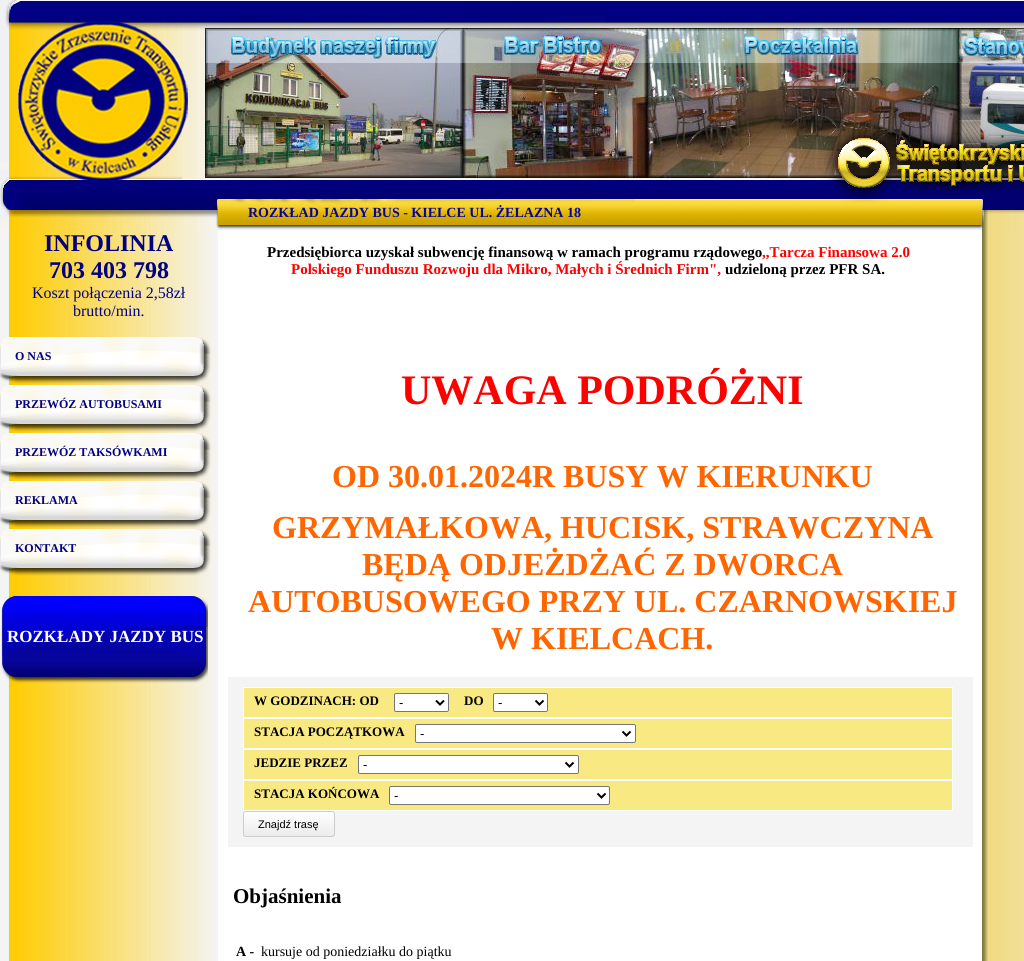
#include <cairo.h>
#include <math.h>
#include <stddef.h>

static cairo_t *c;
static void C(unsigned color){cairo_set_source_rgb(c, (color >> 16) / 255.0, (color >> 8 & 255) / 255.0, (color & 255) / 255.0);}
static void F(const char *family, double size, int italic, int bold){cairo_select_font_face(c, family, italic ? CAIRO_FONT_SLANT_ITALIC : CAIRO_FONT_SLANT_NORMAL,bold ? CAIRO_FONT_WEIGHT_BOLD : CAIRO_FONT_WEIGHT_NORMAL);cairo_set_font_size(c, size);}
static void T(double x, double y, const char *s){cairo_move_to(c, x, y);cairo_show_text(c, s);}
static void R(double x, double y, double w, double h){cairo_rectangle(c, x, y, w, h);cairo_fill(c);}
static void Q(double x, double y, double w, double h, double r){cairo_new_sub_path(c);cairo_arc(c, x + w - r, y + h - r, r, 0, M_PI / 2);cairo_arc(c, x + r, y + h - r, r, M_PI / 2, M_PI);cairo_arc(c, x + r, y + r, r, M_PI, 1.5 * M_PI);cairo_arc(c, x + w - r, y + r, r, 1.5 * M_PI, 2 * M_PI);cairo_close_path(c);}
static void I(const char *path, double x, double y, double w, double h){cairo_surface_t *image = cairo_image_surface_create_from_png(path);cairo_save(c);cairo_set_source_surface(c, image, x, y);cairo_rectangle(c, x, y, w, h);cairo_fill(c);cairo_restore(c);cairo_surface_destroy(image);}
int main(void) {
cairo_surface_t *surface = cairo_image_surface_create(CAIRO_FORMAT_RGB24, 1024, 961);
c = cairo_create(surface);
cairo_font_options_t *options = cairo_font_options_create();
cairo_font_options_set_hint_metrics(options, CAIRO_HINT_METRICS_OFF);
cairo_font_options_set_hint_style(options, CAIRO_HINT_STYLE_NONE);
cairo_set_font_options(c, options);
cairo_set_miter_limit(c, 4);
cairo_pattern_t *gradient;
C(0xf4f4f4);
cairo_paint(c);
I("1.png",0,0,1024,230);
I("2.png",8,230,1016,731);
F("Liberation Serif",24,0,1);
C(0x020181);
T(44,251,"INFOLINIA");
T(49,278,"703 403 798");
F("Liberation Serif",16,0,0);
T(32,298,"Koszt połączenia 2,58zł");
T(73,316,"brutto/min.");
I("3.png",0,337,211,47);
F("Liberation Serif",12,0,1);
T(15,360,"O NAS");
I("3.png",0,385,211,47);
T(15,408,"PRZEWÓZ AUTOBUSAMI");
I("3.png",0,433,211,47);
T(15,456,"PRZEWÓZ TAKSÓWKAMI");
I("3.png",0,481,211,47);
T(15,504,"REKLAMA");
I("3.png",0,529,211,47);
T(15,552,"KONTAKT");
I("4.png",1,596,207,87);
F("Liberation Serif",17,0,1);
C(0xffffff);
T(7,642,"ROZKŁADY JAZDY BUS");
F("Liberation Serif",14,0,1);
C(0x07059a);
T(248,217,"ROZKŁAD JAZDY BUS - KIELCE UL. ŻELAZNA 18");
F("Liberation Serif",15,0,1);
C(0x000000);
T(267,257,"Przedsiębiorca uzyskał subwencję finansową w ramach programu rządowego");
C(0xff0000);
T(762,257,",,Tarcza Finansowa 2.0");
T(291,274,"Polskiego Funduszu Rozwoju dla Mikro, Małych i Średnich Firm\",");
C(0x000000);
T(725,274,"udzieloną przez PFR SA.");
F("Liberation Serif",42,0,1);
C(0xff0000);
T(401,404,"UWAGA PODRÓŻNI");
F("Liberation Serif",32,0,1);
C(0xff6600);
T(332,487,"OD 30.01.2024R BUSY W KIERUNKU");
T(272,538,"GRZYMAŁKOWA, HUCISK, STRAWCZYNA");
T(362,575,"BĘDĄ ODJEŻDŻAĆ Z DWORCA");
T(248,612,"AUTOBUSOWEGO PRZY UL. CZARNOWSKIEJ");
T(491,649,"W KIELCACH.");
C(0xf4f4f4);
R(228,677,745,170);
C(0xf8e982);
cairo_rectangle(c,243.5,687.5,709,30);
cairo_fill_preserve(c);
C(0xffffff);
cairo_set_line_width(c,1);
cairo_stroke(c);
F("Liberation Serif",13,0,1);
C(0x000000);
T(254,705,"W GODZINACH: OD");
C(0xffffff);
Q(394.5,693.5,54,18,1.5);
cairo_fill_preserve(c);
C(0x767676);
cairo_stroke(c);
cairo_new_path(c);
cairo_move_to(c,436,700.5);
cairo_line_to(c,440,704.5);
cairo_line_to(c,444,700.5);
C(0x000000);
cairo_set_line_width(c,2);
cairo_stroke(c);
F("Liberation Sans",13,0,0);
T(399,707,"-");
F("Liberation Serif",13,0,1);
T(464,705,"DO");
C(0xffffff);
Q(493.5,693.5,54,18,1.5);
cairo_fill_preserve(c);
C(0x767676);
cairo_set_line_width(c,1);
cairo_stroke(c);
cairo_new_path(c);
cairo_move_to(c,535.5,700.5);
cairo_line_to(c,539.5,704.5);
cairo_line_to(c,543.5,700.5);
C(0x000000);
cairo_set_line_width(c,2);
cairo_stroke(c);
F("Liberation Sans",13,0,0);
T(498,707,"-");
C(0xf8e982);
cairo_rectangle(c,243.5,718.5,709,30);
cairo_fill_preserve(c);
C(0xffffff);
cairo_set_line_width(c,1);
cairo_stroke(c);
F("Liberation Serif",13,0,1);
C(0x000000);
T(254,736,"STACJA POCZĄTKOWA");
C(0xffffff);
Q(415.5,724.5,220,18,1.5);
cairo_fill_preserve(c);
C(0x767676);
cairo_stroke(c);
cairo_new_path(c);
cairo_move_to(c,622.5,731.5);
cairo_line_to(c,626.5,735.5);
cairo_line_to(c,630.5,731.5);
C(0x000000);
cairo_set_line_width(c,2);
cairo_stroke(c);
F("Liberation Sans",13,0,0);
T(420,738,"-");
C(0xf8e982);
cairo_rectangle(c,243.5,749.5,709,30);
cairo_fill_preserve(c);
C(0xffffff);
cairo_set_line_width(c,1);
cairo_stroke(c);
F("Liberation Serif",13,0,1);
C(0x000000);
T(254,767,"JEDZIE PRZEZ");
C(0xffffff);
Q(358.5,755.5,220,18,1.5);
cairo_fill_preserve(c);
C(0x767676);
cairo_stroke(c);
cairo_new_path(c);
cairo_move_to(c,565.5,762.5);
cairo_line_to(c,569.5,766.5);
cairo_line_to(c,573.5,762.5);
C(0x000000);
cairo_set_line_width(c,2);
cairo_stroke(c);
F("Liberation Sans",13,0,0);
T(363,769,"-");
C(0xf8e982);
cairo_rectangle(c,243.5,780.5,709,30);
cairo_fill_preserve(c);
C(0xffffff);
cairo_set_line_width(c,1);
cairo_stroke(c);
F("Liberation Serif",13,0,1);
C(0x000000);
T(254,798,"STACJA KOŃCOWA");
C(0xffffff);
Q(389.5,786.5,220,18,1.5);
cairo_fill_preserve(c);
C(0x767676);
cairo_stroke(c);
cairo_new_path(c);
cairo_move_to(c,597.5,793.5);
cairo_line_to(c,601.5,797.5);
cairo_line_to(c,605.5,793.5);
C(0x000000);
cairo_set_line_width(c,2);
cairo_stroke(c);
F("Liberation Sans",13,0,0);
T(394,800,"-");
cairo_save(c);
Q(243,811,92,26,3);
cairo_clip(c);
gradient = cairo_pattern_create_linear(289,812,289,836);
cairo_pattern_add_color_stop_rgba(gradient,0,1,1,1,1);
cairo_pattern_add_color_stop_rgba(gradient,1,0.925,0.925,0.925,1);
cairo_set_source(c,gradient);
cairo_pattern_destroy(gradient);
R(243,812,92,24);
cairo_restore(c);
Q(243.5,811.5,91,25,2.5);
C(0xcccccc);
cairo_set_line_width(c,1);
cairo_stroke(c);
F("Liberation Sans",11,0,0);
C(0x000000);
T(258,828,"Znajdź trasę");
F("Liberation Serif",21,0,1);
T(233,903,"Objaśnienia");
F("Liberation Serif",14,0,1);
T(236,956,"A -");
F("Liberation Serif",14,0,0);
T(261,956,"kursuje od poniedziałku do piątku");
cairo_surface_write_to_png(surface, "o.png");
cairo_font_options_destroy(options);
cairo_destroy(c);
cairo_surface_destroy(surface);
return 0;
}
